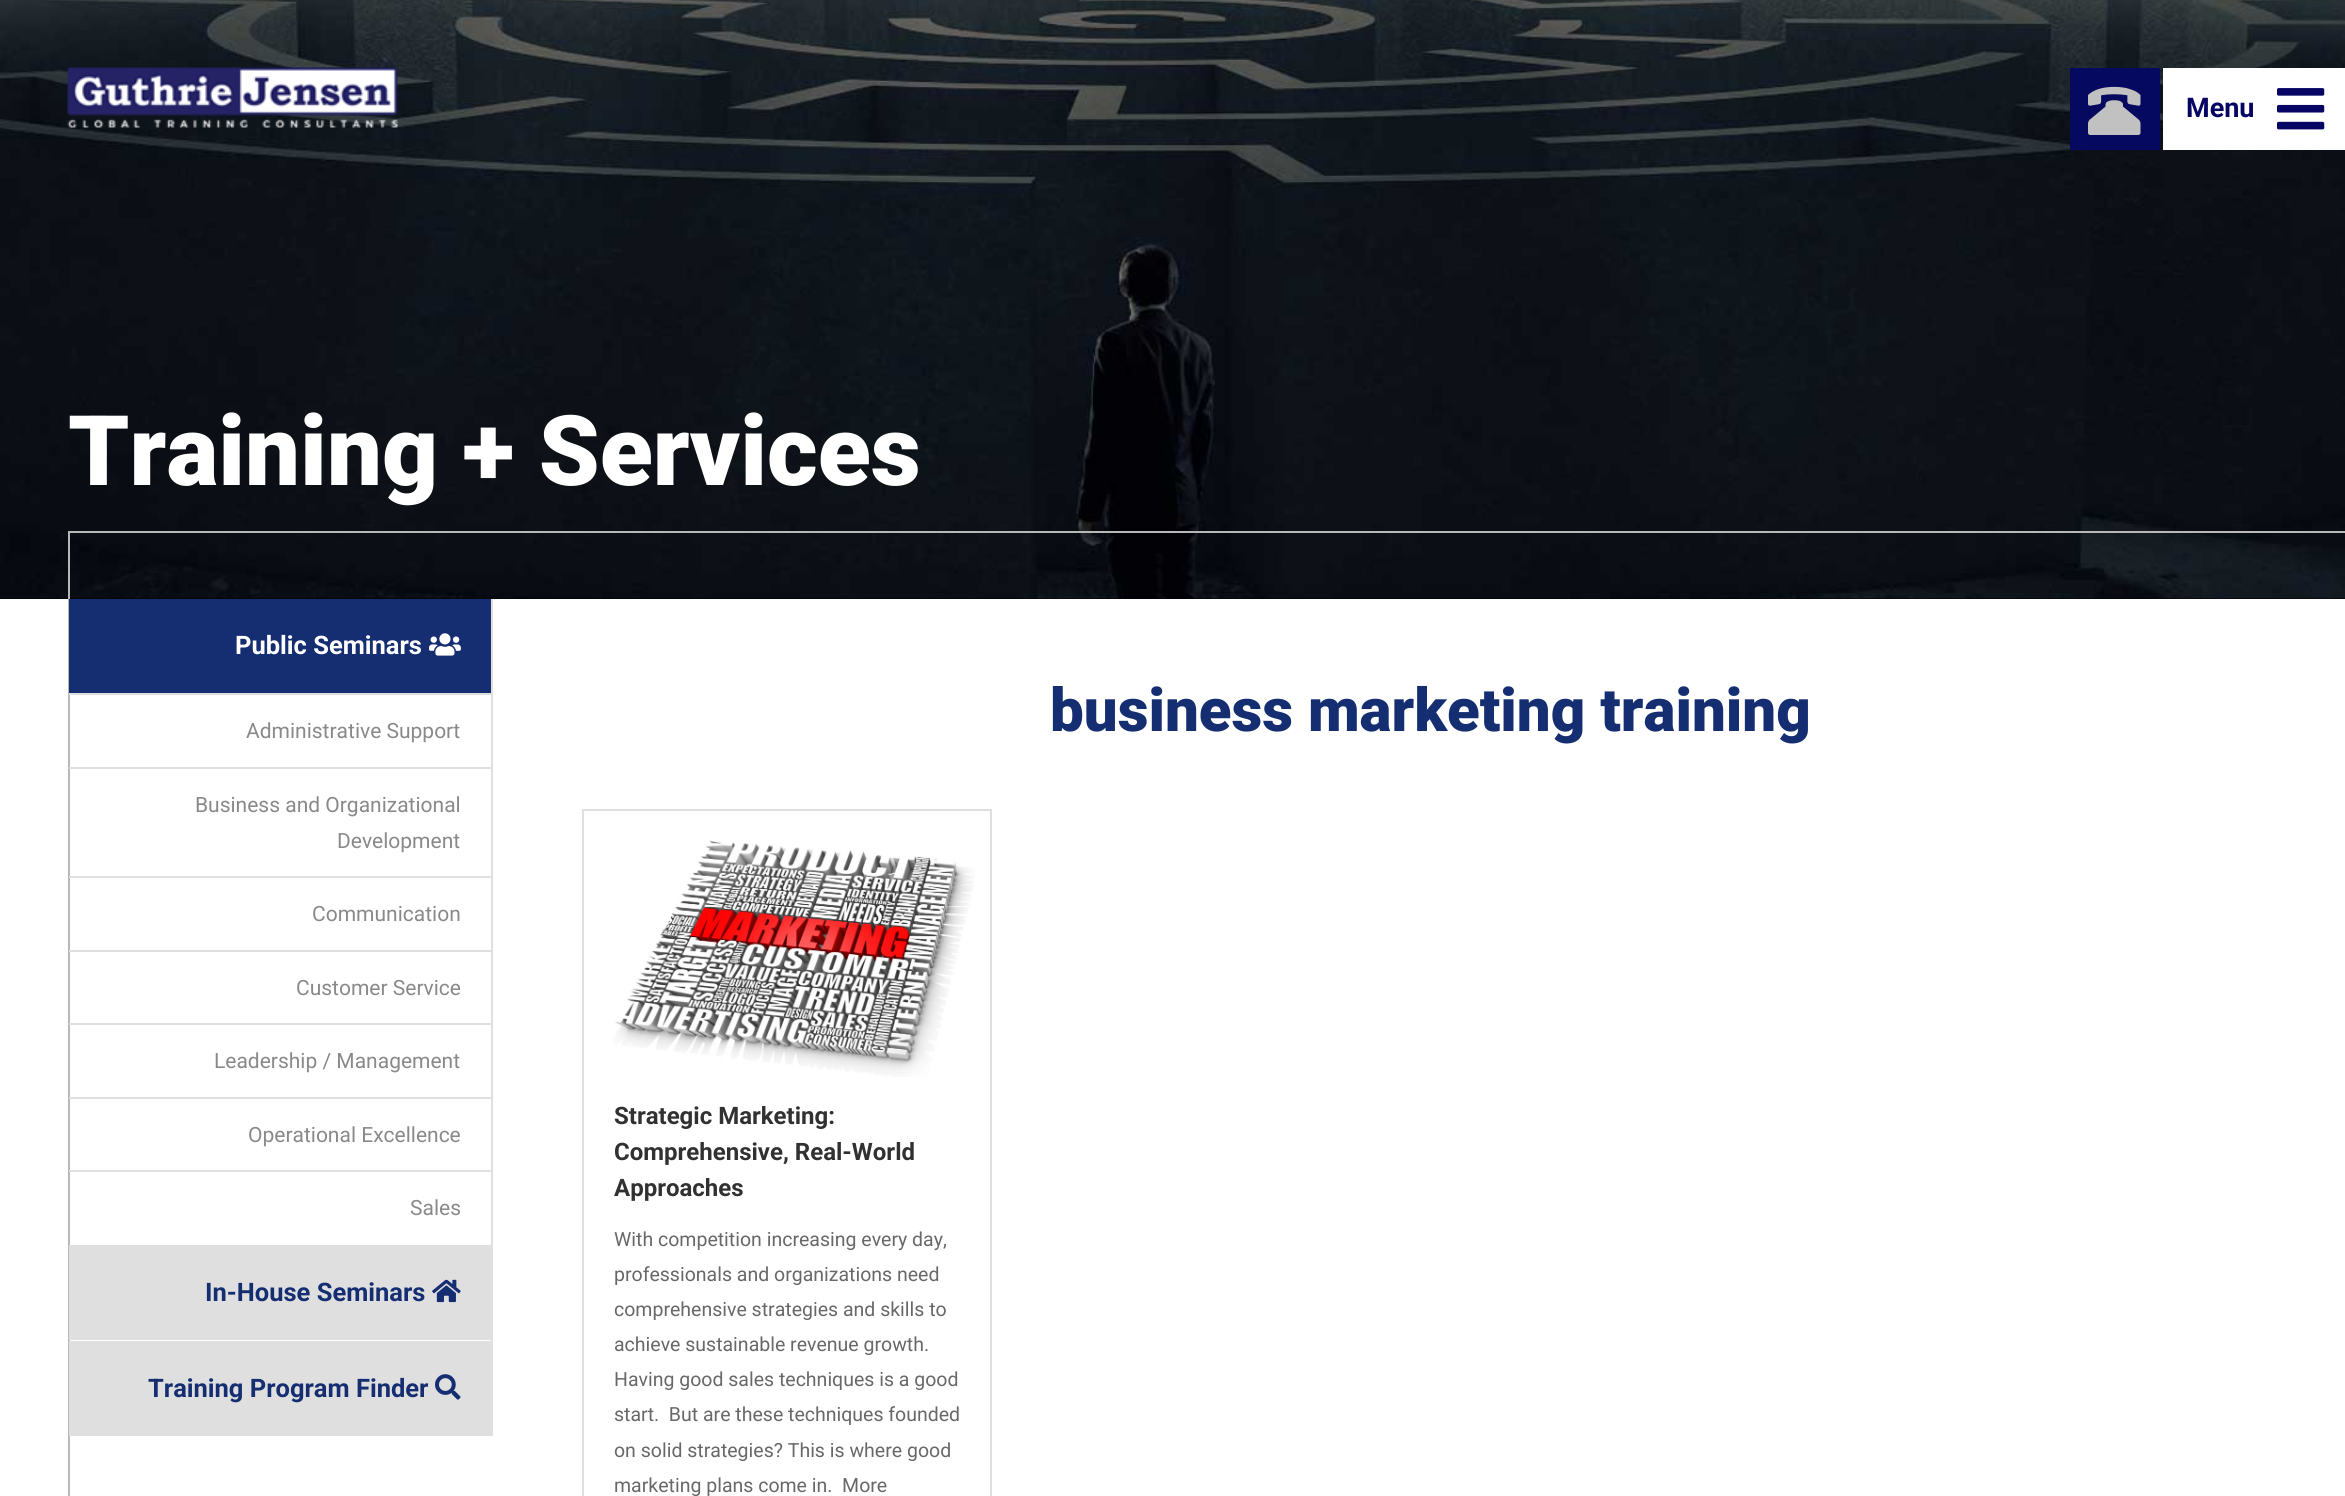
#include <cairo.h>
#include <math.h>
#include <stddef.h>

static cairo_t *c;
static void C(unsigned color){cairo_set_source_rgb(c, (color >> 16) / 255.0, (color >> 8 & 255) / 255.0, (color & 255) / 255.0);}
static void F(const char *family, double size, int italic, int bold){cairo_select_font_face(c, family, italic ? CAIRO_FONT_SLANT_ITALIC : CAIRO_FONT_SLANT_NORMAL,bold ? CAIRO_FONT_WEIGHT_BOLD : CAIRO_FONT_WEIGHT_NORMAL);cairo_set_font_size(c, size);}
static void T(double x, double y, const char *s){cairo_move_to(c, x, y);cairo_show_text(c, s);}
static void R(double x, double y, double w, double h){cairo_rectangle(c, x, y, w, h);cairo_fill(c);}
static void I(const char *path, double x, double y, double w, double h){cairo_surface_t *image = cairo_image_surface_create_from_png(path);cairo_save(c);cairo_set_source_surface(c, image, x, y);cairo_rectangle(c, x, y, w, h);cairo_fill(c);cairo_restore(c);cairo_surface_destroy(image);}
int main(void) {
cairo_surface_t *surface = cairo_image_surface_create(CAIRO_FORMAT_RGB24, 2345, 1496);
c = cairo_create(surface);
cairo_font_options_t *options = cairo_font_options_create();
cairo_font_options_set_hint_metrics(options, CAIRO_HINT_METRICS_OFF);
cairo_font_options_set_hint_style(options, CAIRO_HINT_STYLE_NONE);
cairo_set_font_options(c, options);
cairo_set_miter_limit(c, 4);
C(0xffffff);
cairo_paint(c);
C(0x000000);
R(0,598,2345,1);
I("4.png",0,0,2345,599);
I("1.png",67,67,331,61);
C(0x05095f);
R(2070,68,90,82);
I("2.png",2088,86,53,49);
C(0xffffff);
R(2163,68,182,82);
F("Roboto",27,0,1);
C(0x060563);
T(2186,117,"Menu");
I("3.png",2277,88,48,42);
C(0xb8b8b8);
R(68,531,2277,2);
F("Roboto Black",97.5,0,0);
C(0xffffff);
T(68,485,"Training + Services");
C(0xb8b8b8);
R(68,533,2,66);
R(68,599,2,897);
C(0xdfdfdf);
R(491,599,2,837);
C(0x152e71);
R(69,599,422,94);
F("Roboto",25.5,0,1);
C(0xffffff);
T(235,654,"Public Seminars");
I("5.png",429,633,32,23);
C(0xdddddd);
R(69,693,422,2);
C(0xdfdfdf);
R(69,767,422,2);
F("Roboto",21,0,0);
C(0x898989);
T(246,738,"Administrative Support");
C(0xdfdfdf);
R(69,876,422,2);
C(0x898989);
T(195,812,"Business and Organizational");
T(337,848,"Development");
C(0xdfdfdf);
R(69,950,422,2);
C(0x898989);
T(312,921,"Communication");
C(0xdfdfdf);
R(69,1023,422,2);
C(0x898989);
T(296,995,"Customer Service");
C(0xdfdfdf);
R(69,1097,422,2);
C(0x898989);
T(214,1068,"Leadership / Management");
C(0xdfdfdf);
R(69,1170,422,2);
C(0x898989);
T(248,1142,"Operational Excellence");
T(410,1215,"Sales");
C(0xdfdfdf);
R(69,1245,422,95);
F("Roboto",25.5,0,1);
C(0x152e71);
T(205,1301,"In-House Seminars");
I("6.png",432,1279,29,24);
C(0xdfdfdf);
R(69,1341,422,95);
C(0x152e71);
T(148,1397,"Training Program Finder");
I("7.png",435,1374,26,26);
F("Roboto Black",60,0,0);
T(1050,731,"business marketing training");
cairo_rectangle(c,583,810,408,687);
C(0xdfdfdf);
cairo_stroke(c);
I("8.png",613,840,362,237);
F("Roboto",24,0,1);
C(0x313131);
T(614,1124,"Strategic Marketing:");
T(614,1160,"Comprehensive, Real-World");
T(614,1196,"Approaches");
F("Roboto",19.5,0,0);
C(0x686868);
T(614,1246,"With competition increasing every day,");
T(614,1281,"professionals and organizations need");
T(614,1316,"comprehensive strategies and skills to");
T(614,1351,"achieve sustainable revenue growth.");
T(614,1386,"Having good sales techniques is a good");
T(614,1421,"start.  But are these techniques founded");
T(614,1457,"on solid strategies? This is where good");
T(614,1492,"marketing plans come in.  More");
cairo_surface_write_to_png(surface, "o.png");
cairo_font_options_destroy(options);
cairo_destroy(c);
cairo_surface_destroy(surface);
return 0;
}
